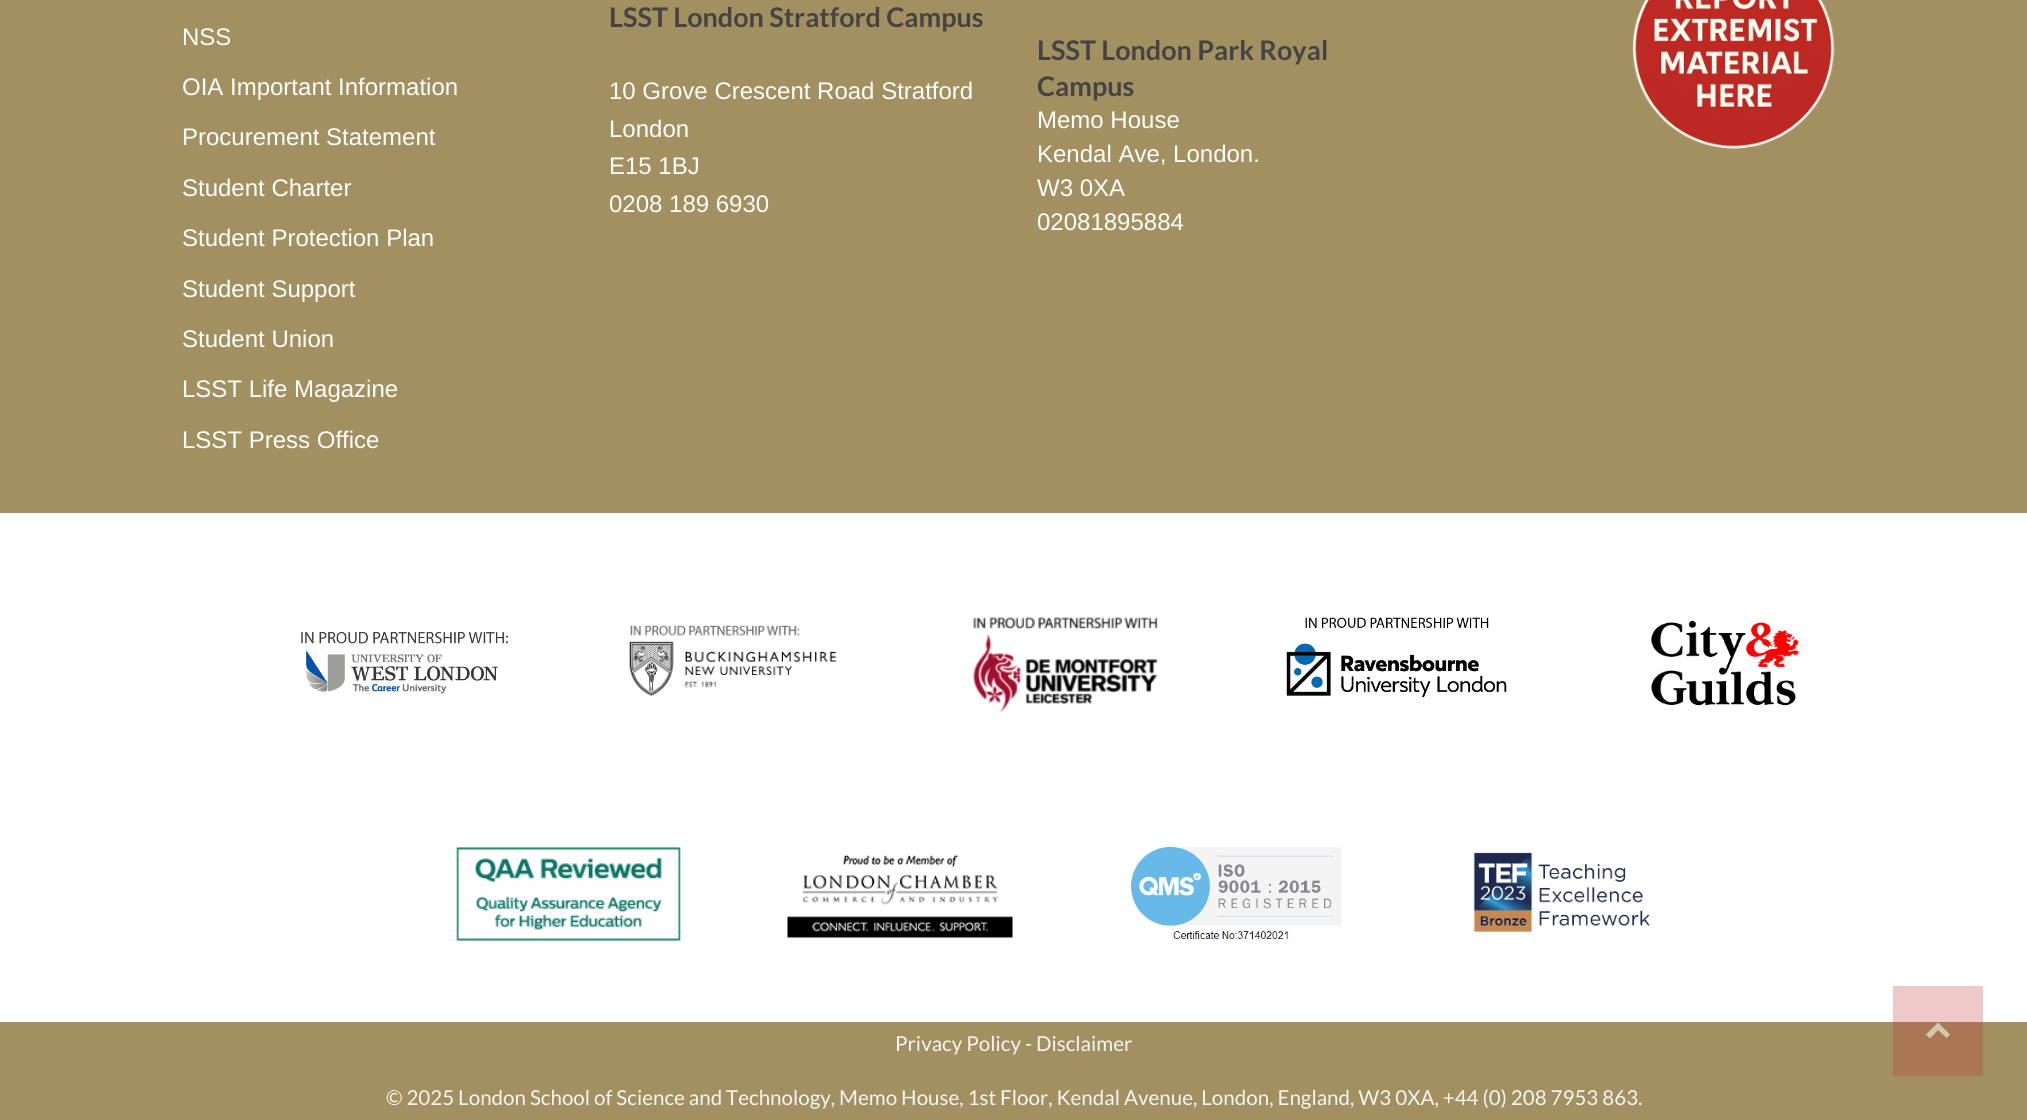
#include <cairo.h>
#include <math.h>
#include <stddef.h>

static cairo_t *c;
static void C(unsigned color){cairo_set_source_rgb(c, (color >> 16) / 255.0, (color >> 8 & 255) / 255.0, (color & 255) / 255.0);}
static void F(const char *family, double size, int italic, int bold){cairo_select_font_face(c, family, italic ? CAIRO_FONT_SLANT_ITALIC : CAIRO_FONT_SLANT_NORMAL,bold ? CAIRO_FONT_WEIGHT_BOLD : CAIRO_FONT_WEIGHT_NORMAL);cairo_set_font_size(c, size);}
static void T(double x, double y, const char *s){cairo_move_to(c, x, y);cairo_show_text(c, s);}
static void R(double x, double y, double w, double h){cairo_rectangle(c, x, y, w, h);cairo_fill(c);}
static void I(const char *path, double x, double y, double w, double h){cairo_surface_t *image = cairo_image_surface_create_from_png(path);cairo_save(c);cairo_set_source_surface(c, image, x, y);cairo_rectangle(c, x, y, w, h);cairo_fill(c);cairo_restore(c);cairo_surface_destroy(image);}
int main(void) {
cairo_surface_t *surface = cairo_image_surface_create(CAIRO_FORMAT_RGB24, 2027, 1120);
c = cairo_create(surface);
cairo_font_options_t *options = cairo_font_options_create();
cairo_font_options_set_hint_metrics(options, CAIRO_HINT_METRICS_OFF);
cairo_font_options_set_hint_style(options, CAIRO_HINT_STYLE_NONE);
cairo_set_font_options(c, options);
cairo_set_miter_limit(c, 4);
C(0xffffff);
cairo_paint(c);
C(0xa29061);
R(0,0,2027,513);
F("Liberation Sans",24,0,0);
C(0xffffff);
T(182,45,"NSS");
T(182,95,"OIA Important Information");
T(182,145,"Procurement Statement");
T(182,196,"Student Charter");
T(182,246,"Student Protection Plan");
T(182,297,"Student Support");
T(182,347,"Student Union");
T(182,397,"LSST Life Magazine");
T(182,448,"LSST Press Office");
F("Lato",27,0,1);
C(0x444444);
T(609,27,"LSST London Stratford Campus");
F("Liberation Sans",24,0,0);
C(0xffffff);
T(609,99,"10 Grove Crescent Road Stratford");
T(609,137,"London");
T(609,174,"E15 1BJ");
T(609,212,"0208 189 6930");
F("Lato",27,0,1);
C(0x444444);
T(1037,60,"LSST London Park Royal");
T(1037,96,"Campus");
F("Liberation Sans",24,0,0);
C(0xffffff);
T(1037,128,"Memo House");
T(1037,162,"Kendal Ave, London.");
T(1037,196,"W3 0XA");
T(1037,230,"02081895884");
I("1.png",1631,0,204,151);
I("2.png",301,631,208,63);
I("3.png",629,625,208,72);
I("4.png",973,617,185,96);
I("5.png",1286,617,221,81);
I("6.png",1651,620,149,86);
I("7.png",456,847,225,94);
I("8.png",787,854,226,84);
I("9.png",1130,846,212,93);
I("10.png",1473,852,177,80);
C(0xa29061);
R(0,1022,2027,98);
F("Lato",20.58,0,0);
C(0xf5f5f5);
T(895,1051,"Privacy Policy - Disclaimer");
T(386,1105,"© 2025 London School of Science and Technology, Memo House, 1st Floor, Kendal Avenue, London, England, W3 0XA, +44 (0) 208 7953 863.");
cairo_set_source_rgba(c,0.753,0.176,0.176,0.26);
R(1893,986,90,90);
C(0xd1c8b0);
cairo_new_path(c);
cairo_move_to(c,1938,1022.5);
cairo_line_to(c,1950,1034.5);
cairo_line_to(c,1946.5,1038);
cairo_line_to(c,1938,1030);
cairo_line_to(c,1930,1038.5);
cairo_line_to(c,1926,1034.5);
cairo_close_path(c);
cairo_fill(c);
cairo_surface_write_to_png(surface, "o.png");
cairo_font_options_destroy(options);
cairo_destroy(c);
cairo_surface_destroy(surface);
return 0;
}
